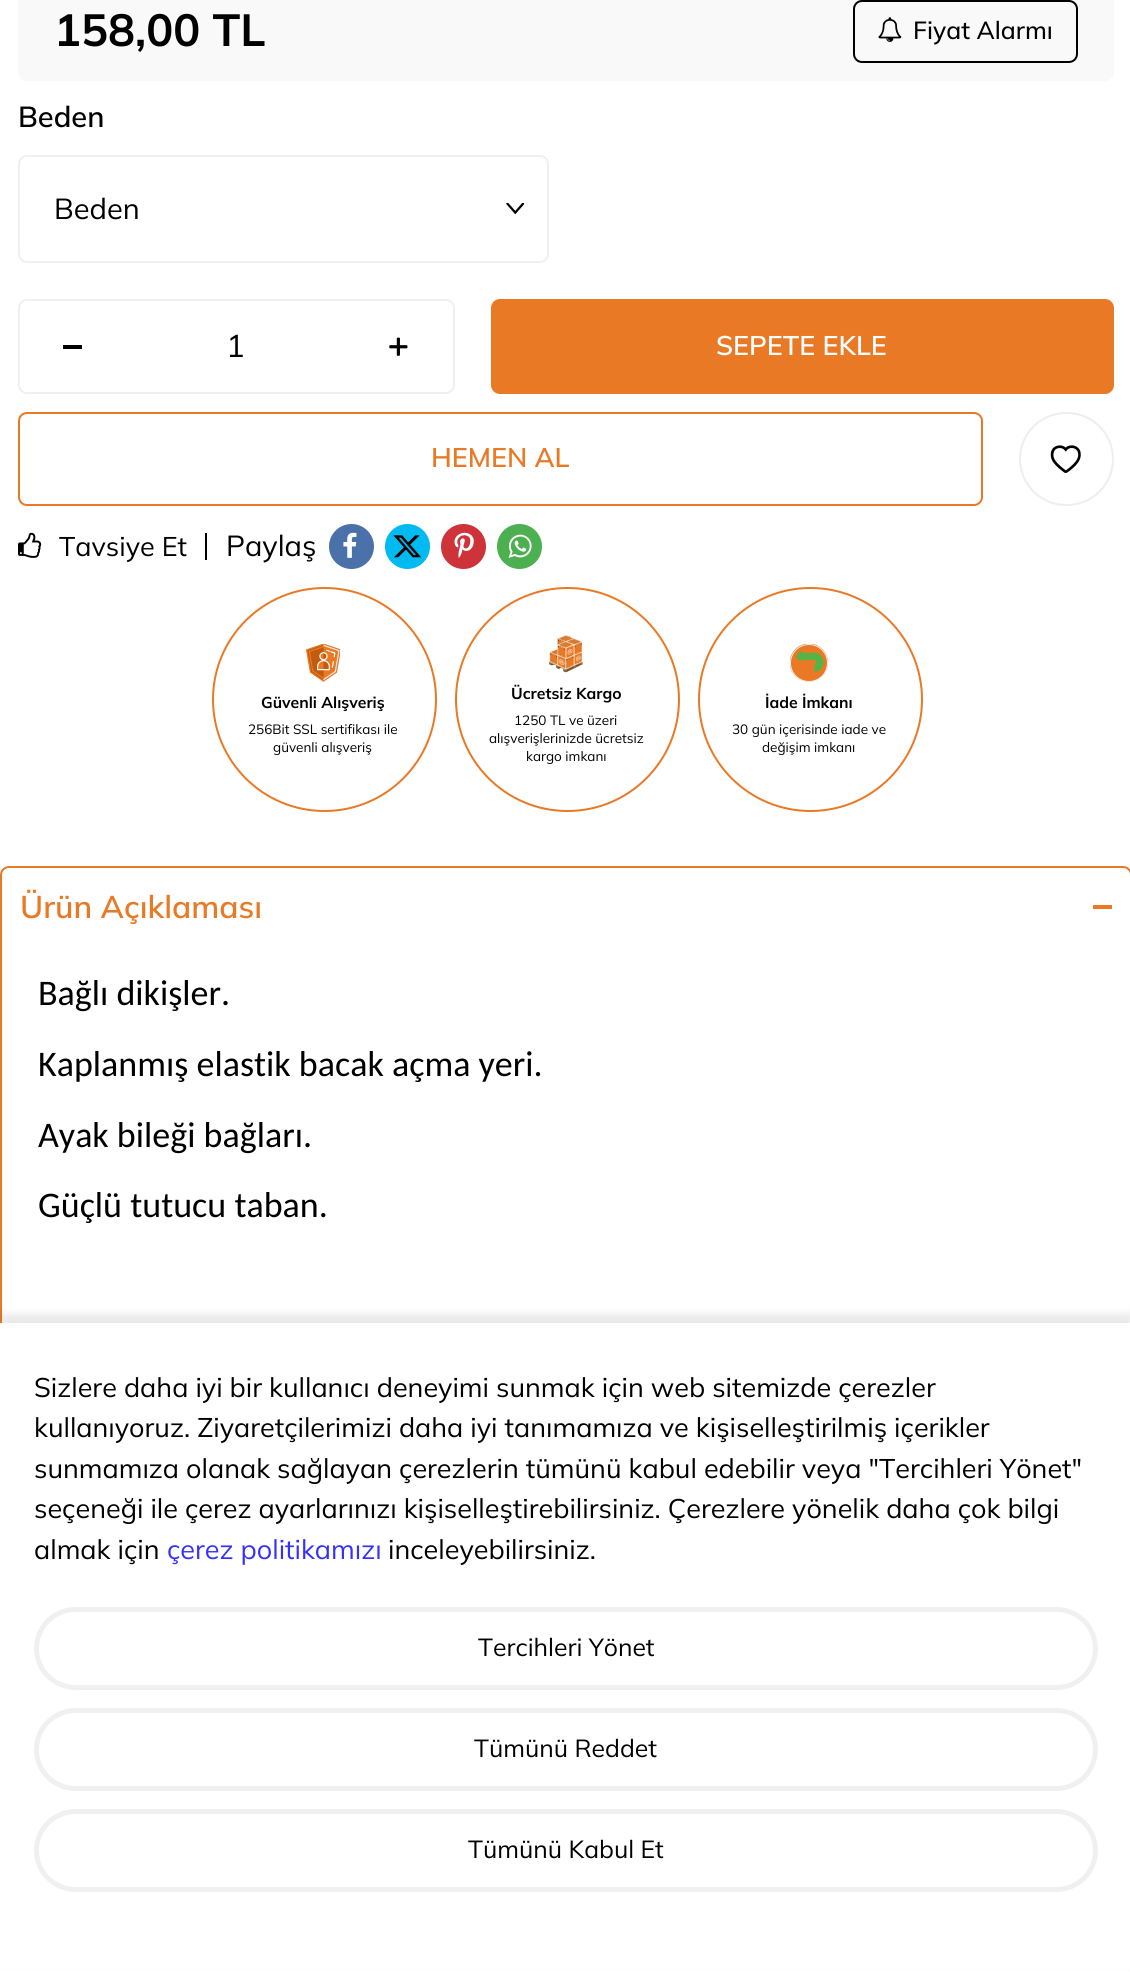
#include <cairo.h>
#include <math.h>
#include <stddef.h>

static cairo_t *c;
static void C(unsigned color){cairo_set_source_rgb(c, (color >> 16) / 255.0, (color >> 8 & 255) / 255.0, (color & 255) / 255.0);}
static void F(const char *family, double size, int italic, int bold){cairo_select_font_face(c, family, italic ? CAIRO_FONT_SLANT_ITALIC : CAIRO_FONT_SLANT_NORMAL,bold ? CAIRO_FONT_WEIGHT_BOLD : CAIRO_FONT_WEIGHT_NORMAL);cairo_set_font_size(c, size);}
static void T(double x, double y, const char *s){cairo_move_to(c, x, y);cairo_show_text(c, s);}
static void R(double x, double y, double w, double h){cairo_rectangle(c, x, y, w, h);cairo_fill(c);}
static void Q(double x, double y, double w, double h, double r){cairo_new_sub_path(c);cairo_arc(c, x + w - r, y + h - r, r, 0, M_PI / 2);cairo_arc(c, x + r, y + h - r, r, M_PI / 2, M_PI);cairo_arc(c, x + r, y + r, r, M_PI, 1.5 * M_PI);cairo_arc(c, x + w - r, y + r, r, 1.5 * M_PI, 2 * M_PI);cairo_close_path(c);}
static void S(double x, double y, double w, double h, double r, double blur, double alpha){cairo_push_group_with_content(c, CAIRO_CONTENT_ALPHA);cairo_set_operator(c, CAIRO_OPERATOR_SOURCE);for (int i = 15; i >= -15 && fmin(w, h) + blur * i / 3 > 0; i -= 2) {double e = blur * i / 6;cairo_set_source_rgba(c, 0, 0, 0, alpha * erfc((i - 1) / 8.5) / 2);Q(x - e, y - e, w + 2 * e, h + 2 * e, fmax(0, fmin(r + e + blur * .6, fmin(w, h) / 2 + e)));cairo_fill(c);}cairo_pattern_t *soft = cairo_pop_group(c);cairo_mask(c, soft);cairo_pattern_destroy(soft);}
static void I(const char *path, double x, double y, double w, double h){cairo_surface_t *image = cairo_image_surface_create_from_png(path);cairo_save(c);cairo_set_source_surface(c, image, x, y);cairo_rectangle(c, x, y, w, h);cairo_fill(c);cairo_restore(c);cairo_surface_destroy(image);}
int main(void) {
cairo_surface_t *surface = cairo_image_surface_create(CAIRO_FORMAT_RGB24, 1130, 1973);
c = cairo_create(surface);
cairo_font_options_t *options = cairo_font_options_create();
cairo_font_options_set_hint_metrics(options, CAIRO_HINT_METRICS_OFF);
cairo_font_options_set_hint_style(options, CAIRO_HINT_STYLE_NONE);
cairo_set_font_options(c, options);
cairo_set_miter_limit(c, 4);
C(0xffffff);
cairo_paint(c);
C(0xf9f9f9);
Q(18,-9,1096,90,9);
cairo_fill(c);
F("Mulish",45,0,1);
C(0x000000);
T(54,46,"158,00 TL");
Q(854,1,223,61,8);
cairo_stroke(c);
I("1.png",878,17,24,25);
F("Mulish Medium",24.75,0,0);
T(913,39,"Fiyat Alarmı");
F("Mulish SemiBold",29,0,0);
T(18,127,"Beden");
I("2.png",506,203,18,12);
Q(19,156,529,106,8);
C(0xf0f0f0);
cairo_stroke(c);
F("Mulish",29,0,0);
C(0x000000);
T(54,219,"Beden");
Q(19,300,435,93,8);
C(0xf0f0f0);
cairo_stroke(c);
C(0x000000);
R(63,345,19,4);
F("Mulish",31.5,0,0);
T(226,357,"1");
I("3.png",389,337,19,19);
C(0xe97925);
Q(492,300,621,93,8);
cairo_fill_preserve(c);
cairo_stroke(c);
F("Mulish SemiBold",27,0,0);
C(0xffffff);
T(716,355,"SEPETE EKLE");
Q(19,413,963,92,8);
C(0xe97925);
cairo_stroke(c);
T(431,467,"HEMEN AL");
Q(1020,413,93,92,46);
C(0xeeeeee);
cairo_stroke(c);
I("4.png",1050,445,31,28);
C(0x000000);
R(205,533,2,27);
I("5.png",18,532,24,26);
F("Mulish",27,0,0);
T(59,556,"Tavsiye Et");
F("Mulish",29,0,0);
T(226,556,"Paylaş");
C(0x4a71a9);
cairo_new_path(c);
cairo_arc(c,351.5,546.5,22.5,0,2 * M_PI);
cairo_fill(c);
I("6.png",343,532,14,26);
C(0x00baf1);
cairo_arc(c,407.5,546.5,22.5,0,2 * M_PI);
cairo_fill(c);
I("7.png",393,535,28,23);
C(0xcd3339);
cairo_arc(c,463.5,546.5,22.5,0,2 * M_PI);
cairo_fill(c);
I("8.png",454,532,20,26);
C(0x4caf50);
cairo_arc(c,519.5,546.5,22.5,0,2 * M_PI);
cairo_fill(c);
I("9.png",508,534,24,24);
cairo_arc(c,324.5,699.5,111.5,0,2 * M_PI);
C(0xe97925);
cairo_stroke(c);
I("10.png",306,644,34,38);
F("Mulish",15.75,0,1);
C(0x000000);
T(261,708,"Güvenli Alışveriş");
F("Mulish",13.5,0,0);
T(248,734,"256Bit SSL sertifikası ile");
T(273,752,"güvenli alışveriş");
cairo_new_path(c);
cairo_arc(c,567.5,699.5,111.5,0,2 * M_PI);
C(0xe97925);
cairo_stroke(c);
I("11.png",549,635,34,38);
F("Mulish",15.75,0,1);
C(0x000000);
T(511,699,"Ücretsiz Kargo");
F("Mulish",13.5,0,0);
T(514,725,"1250 TL ve üzeri");
T(489,743,"alışverişlerinizde ücretsiz");
T(526,761,"kargo imkanı");
cairo_new_path(c);
cairo_arc(c,810.5,699.5,111.5,0,2 * M_PI);
C(0xe97925);
cairo_stroke(c);
I("12.png",790,644,38,38);
F("Mulish",15.75,0,1);
C(0x000000);
T(765,708,"İade İmkanı");
F("Mulish",13.5,0,0);
T(732,734,"30 gün içerisinde iade ve");
T(762,752,"değişim imkanı");
Q(1,867,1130,644,8);
C(0xe97925);
cairo_stroke(c);
F("Mulish SemiBold",31.5,0,0);
T(20,918,"Ürün Açıklaması");
R(1093,905,19,4);
F("Carlito",36,0,0);
C(0x000000);
T(38,1005,"Bağlı dikişler.");
T(38,1076,"Kaplanmış elastik bacak açma yeri.");
T(38,1147,"Ayak bileği bağları.");
T(38,1217,"Güçlü tutucu taban.");
C(0x000000);
S(0,1314,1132,650,0,4.5,.09);
C(0xffffff);
R(0,1323,1130,646);
F("Mulish",27,0,0);
C(0x000000);
T(34,1397,"Sizlere daha iyi bir kullanıcı deneyimi sunmak için web sitemizde çerezler");
T(34,1437,"kullanıyoruz. Ziyaretçilerimizi daha iyi tanımamıza ve kişiselleştirilmiş içerikler");
T(34,1478,"sunmamıza olanak sağlayan çerezlerin tümünü kabul edebilir veya \"Tercihleri Yönet\"");
T(34,1518,"seçeneği ile çerez ayarlarınızı kişiselleştirebilirsiniz. Çerezlere yönelik daha çok bilgi");
T(34,1559,"almak için");
C(0x3430ff);
T(167,1559,"çerez politikamızı");
C(0x000000);
T(388,1559,"inceleyebilirsiniz.");
Q(36.5,1609.5,1059,78,39);
C(0xf0f0f0);
cairo_set_line_width(c,5);
cairo_stroke(c);
F("Mulish",24.75,0,0);
C(0x000000);
T(478,1656,"Tercihleri Yönet");
Q(36.5,1710.5,1059,78,39);
C(0xf0f0f0);
cairo_stroke(c);
C(0x000000);
T(474,1757,"Tümünü Reddet");
Q(36.5,1811.5,1059,78,39);
C(0xf0f0f0);
cairo_stroke(c);
C(0x000000);
T(468,1858,"Tümünü Kabul Et");
cairo_surface_write_to_png(surface, "o.png");
cairo_font_options_destroy(options);
cairo_destroy(c);
cairo_surface_destroy(surface);
return 0;
}
